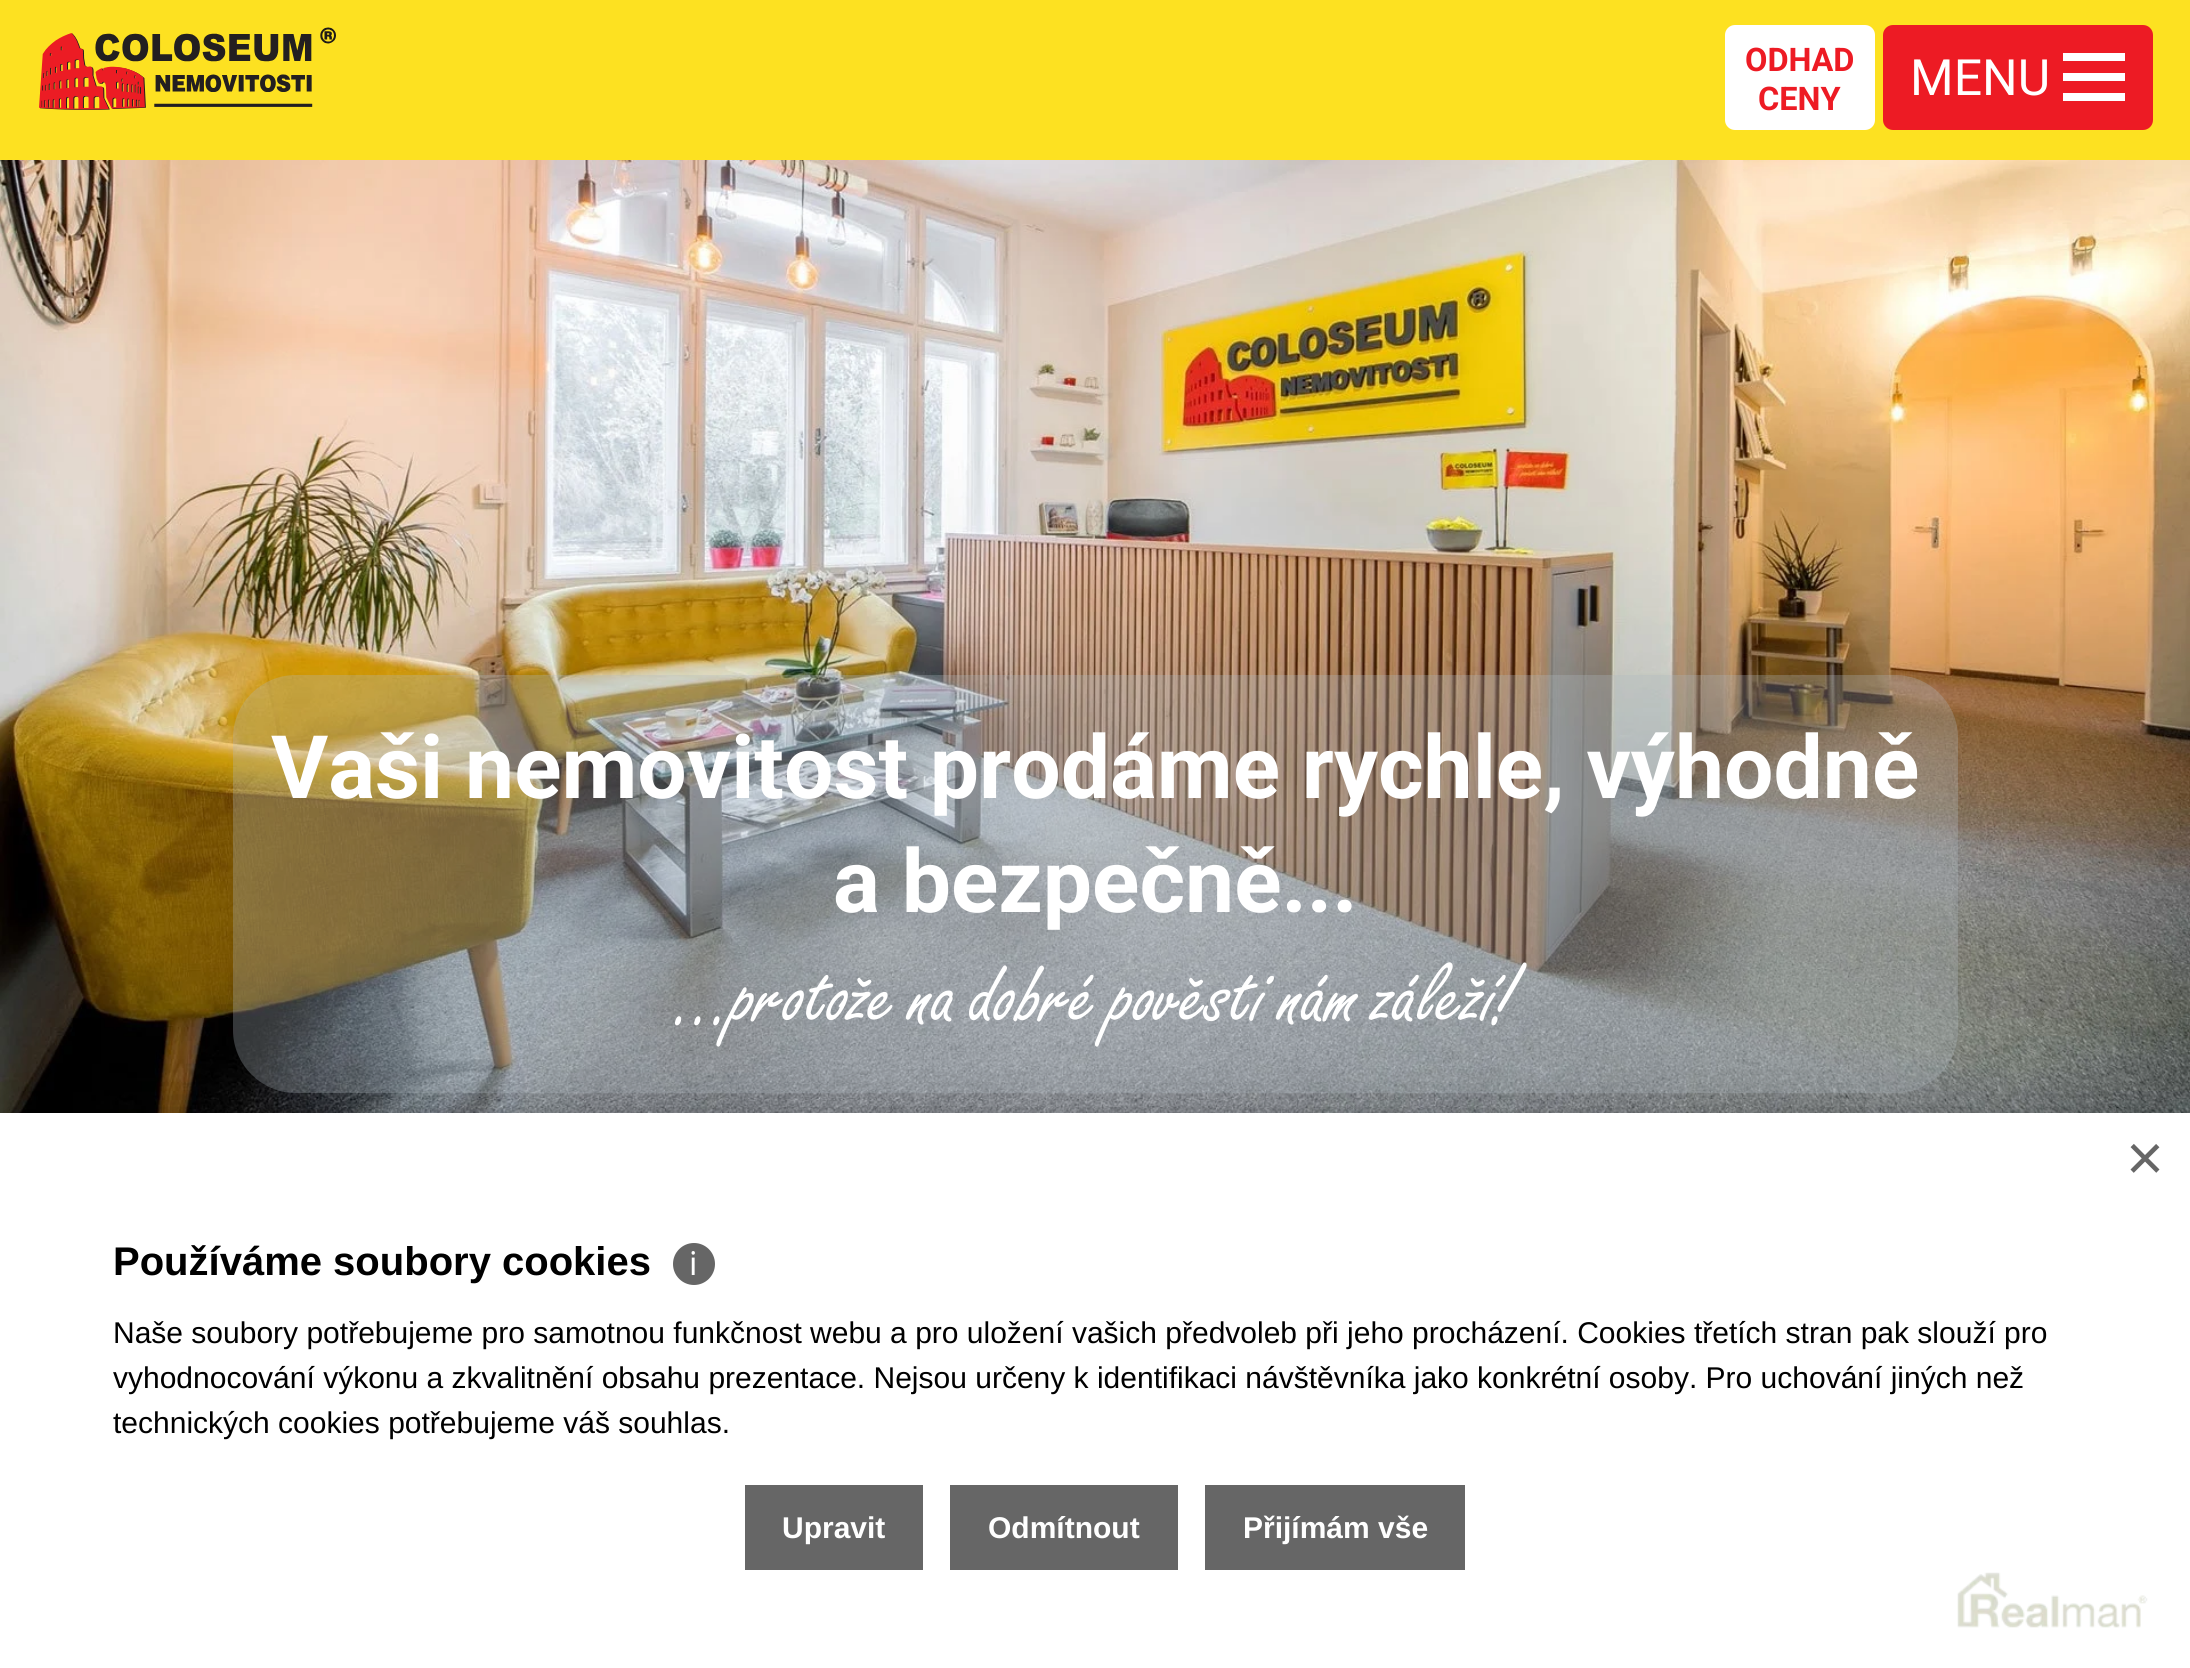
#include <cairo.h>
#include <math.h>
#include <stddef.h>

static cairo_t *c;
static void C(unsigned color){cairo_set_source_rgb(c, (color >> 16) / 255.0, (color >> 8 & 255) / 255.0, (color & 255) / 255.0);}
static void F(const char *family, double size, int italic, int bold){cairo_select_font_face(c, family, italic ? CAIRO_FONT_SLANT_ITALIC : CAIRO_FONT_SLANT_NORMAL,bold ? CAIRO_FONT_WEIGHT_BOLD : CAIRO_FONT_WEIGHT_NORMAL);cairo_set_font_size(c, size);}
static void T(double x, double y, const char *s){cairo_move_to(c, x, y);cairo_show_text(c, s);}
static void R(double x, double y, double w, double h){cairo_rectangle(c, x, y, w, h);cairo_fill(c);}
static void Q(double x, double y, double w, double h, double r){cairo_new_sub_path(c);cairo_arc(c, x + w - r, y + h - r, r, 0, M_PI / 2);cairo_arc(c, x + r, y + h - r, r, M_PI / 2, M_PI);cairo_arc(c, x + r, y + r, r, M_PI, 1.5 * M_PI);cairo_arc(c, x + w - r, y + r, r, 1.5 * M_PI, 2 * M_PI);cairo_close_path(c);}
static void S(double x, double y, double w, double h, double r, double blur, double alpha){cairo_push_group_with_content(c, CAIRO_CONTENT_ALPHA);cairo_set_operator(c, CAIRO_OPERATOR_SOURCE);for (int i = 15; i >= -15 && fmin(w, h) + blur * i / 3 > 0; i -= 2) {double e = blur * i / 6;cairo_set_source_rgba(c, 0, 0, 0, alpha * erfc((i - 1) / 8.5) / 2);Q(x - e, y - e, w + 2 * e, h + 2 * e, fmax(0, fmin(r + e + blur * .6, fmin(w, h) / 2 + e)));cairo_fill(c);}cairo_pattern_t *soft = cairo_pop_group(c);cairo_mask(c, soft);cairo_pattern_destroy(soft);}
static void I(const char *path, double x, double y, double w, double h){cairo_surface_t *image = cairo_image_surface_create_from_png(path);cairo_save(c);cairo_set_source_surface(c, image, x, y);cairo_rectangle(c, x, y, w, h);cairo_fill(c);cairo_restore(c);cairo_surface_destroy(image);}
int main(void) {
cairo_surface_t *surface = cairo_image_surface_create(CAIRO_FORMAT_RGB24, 2190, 1668);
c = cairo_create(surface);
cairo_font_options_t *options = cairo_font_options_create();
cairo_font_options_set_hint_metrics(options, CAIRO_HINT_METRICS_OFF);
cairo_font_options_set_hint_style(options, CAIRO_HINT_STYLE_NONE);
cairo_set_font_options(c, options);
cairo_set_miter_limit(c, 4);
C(0xfde121);
cairo_paint(c);
I("1.png",39,27,297,83);
C(0xffffff);
Q(1725,25,150,105,10);
cairo_fill(c);
F("Roboto",32.5,0,1);
C(0xed1b24);
T(1745,71,"ODHAD");
T(1758,110,"CENY");
Q(1883,25,270,105,10);
cairo_fill(c);
F("Roboto",50,0,0);
C(0xffffff);
T(1910,95,"MENU");
R(2063,53,62,8);
R(2063,73,62,8);
R(2063,93,62,8);
I("2.png",0,160,2190,953);
cairo_set_source_rgba(c,0.69,0.729,0.753,0.3);
Q(233,675,1725,418,63);
cairo_fill(c);
F("Roboto",87.6,0,1);
C(0xffffff);
T(271,798,"Vaši nemovitost prodáme rychle, výhodně");
T(833,912,"a bezpečně...");
F("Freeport",87.6,0,0);
T(672,1023,"...protože na dobré pověsti nám záleží!");
C(0x000000);
S(25,1138,2140,507,0,37.5,.5);
C(0xffffff);
R(0,1113,2190,555);
I("3.png",1957,1572,191,56);
F("Liberation Sans",65,0,0);
C(0x666666);
T(2126,1180,"×");
F("Liberation Sans",40,0,1);
C(0x000000);
T(113,1275,"Používáme soubory cookies");
C(0x666666);
cairo_new_path(c);
cairo_arc(c,694,1264,21,0,2 * M_PI);
cairo_fill(c);
F("Noto Sans",32.5,0,0);
C(0xffffff);
T(689,1275,"ℹ");
F("Liberation Sans",30,0,0);
C(0x000000);
T(113,1343,"Naše soubory potřebujeme pro samotnou funkčnost webu a pro uložení vašich předvoleb při jeho procházení. Cookies třetích stran pak slouží pro");
T(113,1388,"vyhodnocování výkonu a zkvalitnění obsahu prezentace. Nejsou určeny k identifikaci návštěvníka jako konkrétní osoby. Pro uchování jiných než");
T(113,1433,"technických cookies potřebujeme váš souhlas.");
C(0x666666);
R(745,1485,178,85);
F("Liberation Sans",30,0,1);
C(0xffffff);
T(782,1538,"Upravit");
C(0x666666);
R(950,1485,228,85);
C(0xffffff);
T(988,1538,"Odmítnout");
C(0x666666);
R(1205,1485,260,85);
C(0xffffff);
T(1243,1538,"Přijímám vše");
cairo_surface_write_to_png(surface, "o.png");
cairo_font_options_destroy(options);
cairo_destroy(c);
cairo_surface_destroy(surface);
return 0;
}
